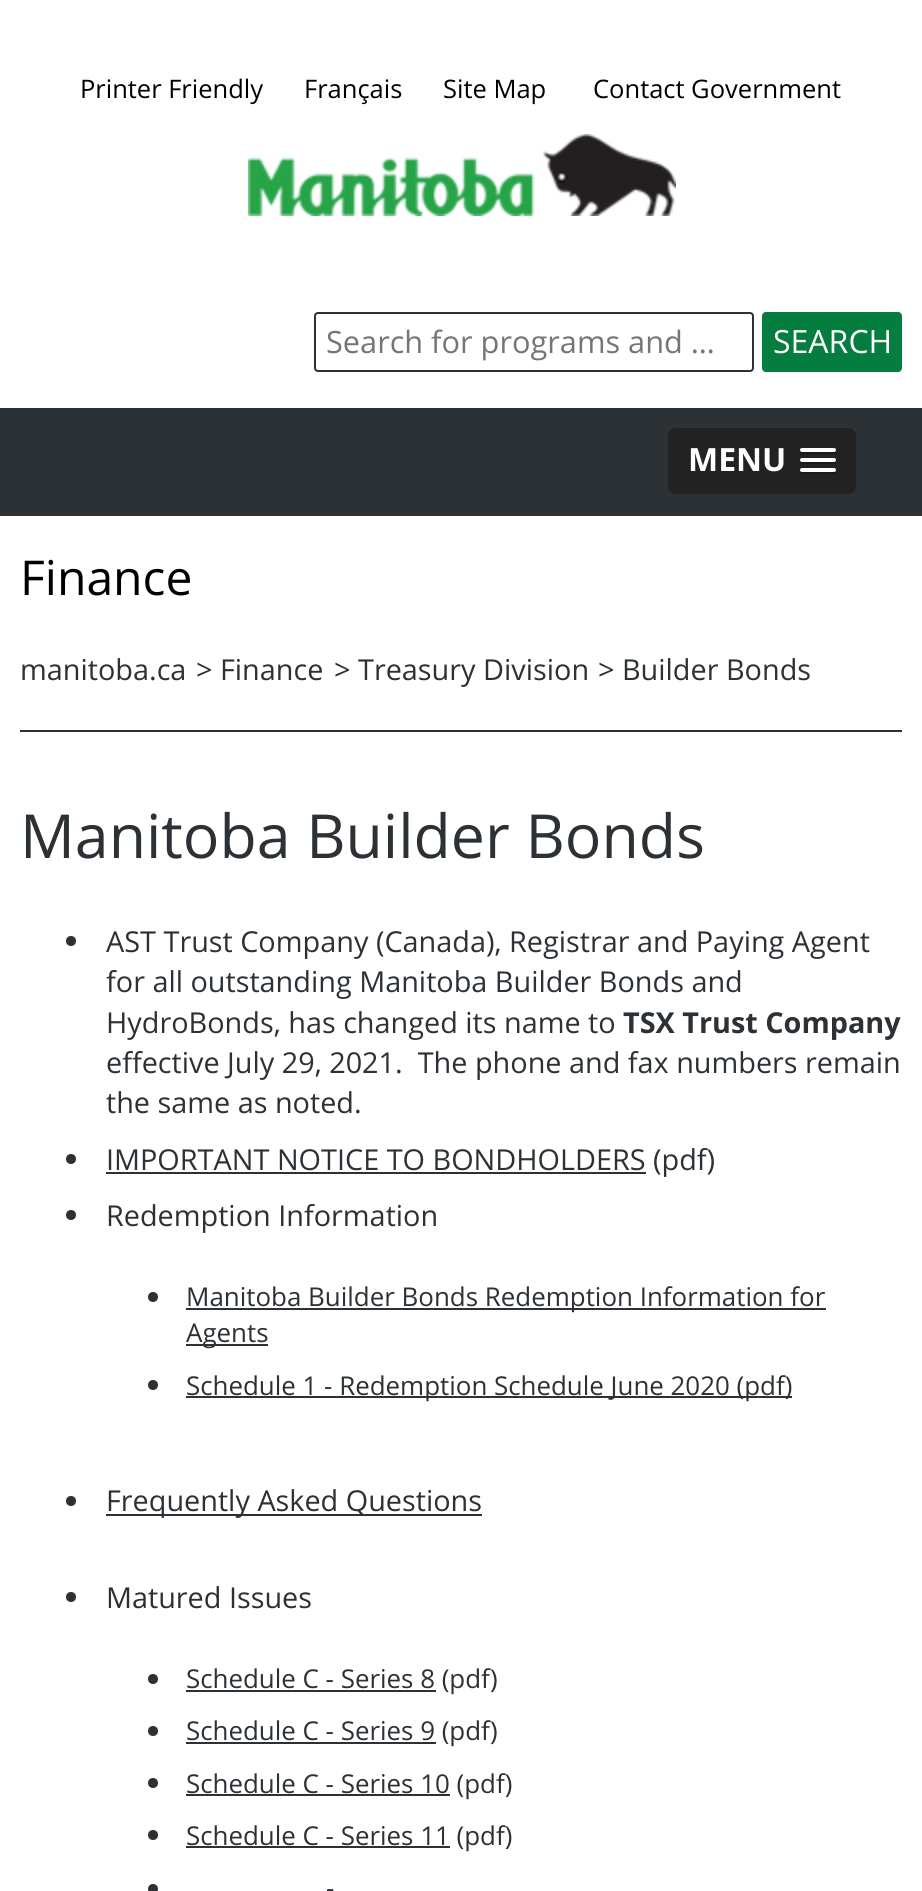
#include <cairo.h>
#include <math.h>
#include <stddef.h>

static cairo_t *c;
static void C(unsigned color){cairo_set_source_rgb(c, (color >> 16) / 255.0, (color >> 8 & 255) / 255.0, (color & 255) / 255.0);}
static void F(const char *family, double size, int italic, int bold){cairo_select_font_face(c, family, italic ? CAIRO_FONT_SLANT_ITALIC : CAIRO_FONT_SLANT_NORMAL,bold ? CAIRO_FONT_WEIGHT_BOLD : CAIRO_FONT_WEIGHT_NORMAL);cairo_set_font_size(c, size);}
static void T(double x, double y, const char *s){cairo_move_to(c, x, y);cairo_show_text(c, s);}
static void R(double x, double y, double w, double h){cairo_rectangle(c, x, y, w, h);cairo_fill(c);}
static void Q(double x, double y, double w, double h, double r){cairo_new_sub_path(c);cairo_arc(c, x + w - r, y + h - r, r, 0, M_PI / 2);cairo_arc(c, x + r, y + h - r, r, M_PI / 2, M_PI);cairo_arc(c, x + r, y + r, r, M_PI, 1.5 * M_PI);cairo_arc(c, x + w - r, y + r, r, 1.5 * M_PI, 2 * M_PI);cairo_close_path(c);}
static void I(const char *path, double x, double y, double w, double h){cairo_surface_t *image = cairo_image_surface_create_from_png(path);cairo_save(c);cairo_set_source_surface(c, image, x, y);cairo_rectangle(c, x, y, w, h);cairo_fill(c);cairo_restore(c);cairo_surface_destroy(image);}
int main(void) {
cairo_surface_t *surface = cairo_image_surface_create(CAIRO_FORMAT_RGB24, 922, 1891);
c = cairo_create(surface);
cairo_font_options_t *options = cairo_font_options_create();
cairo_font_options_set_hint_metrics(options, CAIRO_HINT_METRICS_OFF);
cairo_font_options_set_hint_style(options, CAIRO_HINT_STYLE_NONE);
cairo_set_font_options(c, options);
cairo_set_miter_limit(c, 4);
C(0xffffff);
cairo_paint(c);
F("Open Sans",25.5,0,0);
C(0x000000);
T(80,98,"Printer Friendly");
T(304,98,"Français");
T(443,98,"Site Map");
T(593,98,"Contact Government");
I("1.png",248,134,428,82);
Q(315,313,438,58,3);
C(0x2c3135);
cairo_stroke(c);
F("Open Sans",30.7,0,0);
C(0x757575);
T(326,353,"Search for programs and …");
C(0x057d3e);
Q(762,312,140,60,4);
cairo_fill(c);
F("Open Sans",32,0,0);
C(0xffffff);
T(773,353,"SEARCH");
C(0x2c3135);
R(0,408,922,108);
C(0x222222);
Q(668,428,188,66,8);
cairo_fill(c);
F("Open Sans",32,0,1);
C(0xffffff);
T(688,471,"MENU");
C(0x1a1a1a);
cairo_new_path(c);
cairo_move_to(c,800.5,451);
cairo_curve_to(c,798,455,807,454,807.5,454);
cairo_line_to(c,828.5,454);
cairo_curve_to(c,829,454,838,455,835.5,451);
cairo_curve_to(c,835.5,451.5,834.5,452,834,452);
cairo_line_to(c,802,452);
cairo_curve_to(c,801.5,452,800.5,451.5,800.5,451);
cairo_close_path(c);
cairo_fill(c);
C(0xffffff);
Q(800,448,36,4,2);
cairo_fill(c);
C(0x1a1a1a);
cairo_new_path(c);
cairo_move_to(c,800.5,461);
cairo_curve_to(c,798,465,807,464,807.5,464);
cairo_line_to(c,828.5,464);
cairo_curve_to(c,829,464,838,465,835.5,461);
cairo_curve_to(c,835.5,461.5,834.5,462,834,462);
cairo_line_to(c,802,462);
cairo_curve_to(c,801.5,462,800.5,461.5,800.5,461);
cairo_close_path(c);
cairo_fill(c);
C(0xffffff);
Q(800,458,36,4,2);
cairo_fill(c);
C(0x1a1a1a);
cairo_new_path(c);
cairo_move_to(c,800.5,471);
cairo_curve_to(c,798,475,807,474,807.5,474);
cairo_line_to(c,828.5,474);
cairo_curve_to(c,829,474,838,475,835.5,471);
cairo_curve_to(c,835.5,471.5,834.5,472,834,472);
cairo_line_to(c,802,472);
cairo_curve_to(c,801.5,472,800.5,471.5,800.5,471);
cairo_close_path(c);
cairo_fill(c);
C(0xffffff);
Q(800,468,36,4,2);
cairo_fill(c);
F("Open Sans",48,0,0);
C(0x000000);
T(20,595,"Finance");
C(0x2c3135);
R(20,730,882,2);
F("Open Sans",28.8,0,0);
T(20,680,"manitoba.ca");
T(196,680,"> Finance");
T(334,680,"> Treasury Division");
T(598,680,"> Builder Bonds");
F("Open Sans",60.75,0,0);
T(20,858,"Manitoba Builder Bonds");
cairo_new_path(c);
cairo_arc(c,71,941,5,0,2 * M_PI);
cairo_fill(c);
F("Open Sans",28.8,0,0);
T(106,952,"AST Trust Company (Canada), Registrar and Paying Agent");
T(106,992,"for all outstanding Manitoba Builder Bonds and");
T(106,1033,"HydroBonds, has changed its name to");
F("Open Sans",28.8,0,1);
T(623,1033,"TSX Trust Company");
F("Open Sans",28.8,0,0);
T(106,1073,"effective July 29, 2021.  The phone and fax numbers remain");
T(106,1113,"the same as noted.");
cairo_new_path(c);
cairo_arc(c,71,1159,5,0,2 * M_PI);
cairo_fill(c);
T(106,1170,"IMPORTANT NOTICE TO BONDHOLDERS");
R(106,1172,540,2);
T(653,1170,"(pdf)");
cairo_new_path(c);
cairo_arc(c,71,1215,5,0,2 * M_PI);
cairo_fill(c);
T(106,1226,"Redemption Information");
cairo_new_path(c);
cairo_arc(c,153,1297,5,0,2 * M_PI);
cairo_fill(c);
R(186,1308,640,2);
F("Open Sans",25.9,0,0);
T(186,1306,"Manitoba Builder Bonds Redemption Information for");
R(186,1344,82,2);
T(186,1342,"Agents");
cairo_new_path(c);
cairo_arc(c,153,1385,5,0,2 * M_PI);
cairo_fill(c);
R(186,1396,606,2);
T(186,1395,"Schedule 1 - Redemption Schedule June 2020 (pdf)");
cairo_new_path(c);
cairo_arc(c,71,1501,5,0,2 * M_PI);
cairo_fill(c);
R(106,1514,376,2);
F("Open Sans",28.8,0,0);
T(106,1511,"Frequently Asked Questions");
cairo_new_path(c);
cairo_arc(c,71,1597,5,0,2 * M_PI);
cairo_fill(c);
T(106,1608,"Matured Issues");
cairo_new_path(c);
cairo_arc(c,153,1679,5,0,2 * M_PI);
cairo_fill(c);
R(186,1690,250,2);
F("Open Sans",25.9,0,0);
T(186,1688,"Schedule C - Series 8 (pdf)");
cairo_new_path(c);
cairo_arc(c,153,1731,5,0,2 * M_PI);
cairo_fill(c);
R(186,1742,250,2);
T(186,1740,"Schedule C - Series 9 (pdf)");
cairo_new_path(c);
cairo_arc(c,153,1783,5,0,2 * M_PI);
cairo_fill(c);
R(186,1794,264,2);
T(186,1793,"Schedule C - Series 10 (pdf)");
cairo_new_path(c);
cairo_arc(c,153,1835,5,0,2 * M_PI);
cairo_fill(c);
R(186,1846,264,2);
T(186,1845,"Schedule C - Series 11 (pdf)");
cairo_new_path(c);
cairo_arc(c,153,1889,5,0,2 * M_PI);
cairo_fill(c);
T(326,1897,"-");
cairo_surface_write_to_png(surface, "o.png");
cairo_font_options_destroy(options);
cairo_destroy(c);
cairo_surface_destroy(surface);
return 0;
}
